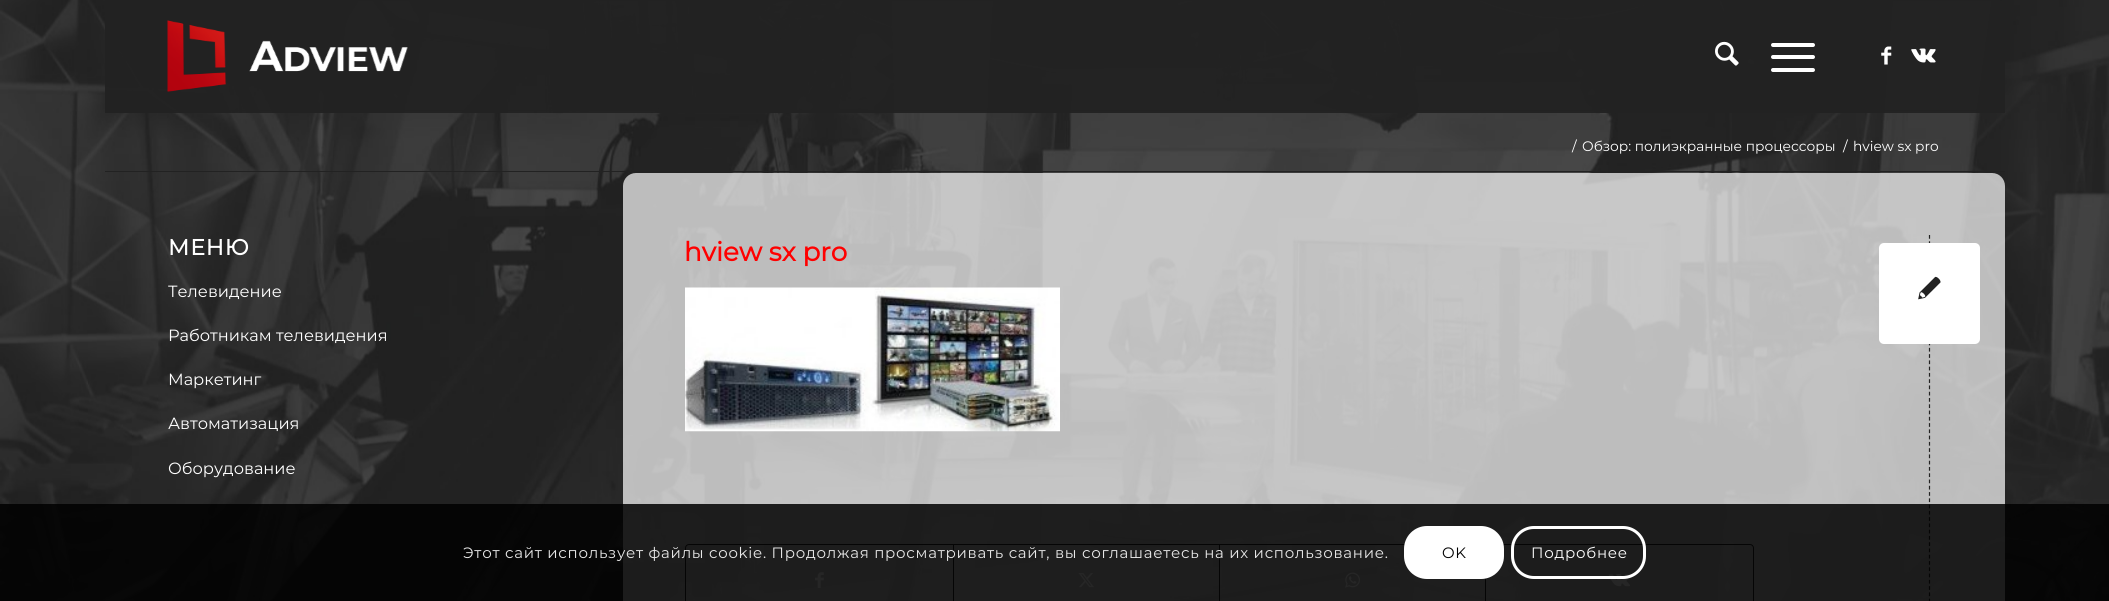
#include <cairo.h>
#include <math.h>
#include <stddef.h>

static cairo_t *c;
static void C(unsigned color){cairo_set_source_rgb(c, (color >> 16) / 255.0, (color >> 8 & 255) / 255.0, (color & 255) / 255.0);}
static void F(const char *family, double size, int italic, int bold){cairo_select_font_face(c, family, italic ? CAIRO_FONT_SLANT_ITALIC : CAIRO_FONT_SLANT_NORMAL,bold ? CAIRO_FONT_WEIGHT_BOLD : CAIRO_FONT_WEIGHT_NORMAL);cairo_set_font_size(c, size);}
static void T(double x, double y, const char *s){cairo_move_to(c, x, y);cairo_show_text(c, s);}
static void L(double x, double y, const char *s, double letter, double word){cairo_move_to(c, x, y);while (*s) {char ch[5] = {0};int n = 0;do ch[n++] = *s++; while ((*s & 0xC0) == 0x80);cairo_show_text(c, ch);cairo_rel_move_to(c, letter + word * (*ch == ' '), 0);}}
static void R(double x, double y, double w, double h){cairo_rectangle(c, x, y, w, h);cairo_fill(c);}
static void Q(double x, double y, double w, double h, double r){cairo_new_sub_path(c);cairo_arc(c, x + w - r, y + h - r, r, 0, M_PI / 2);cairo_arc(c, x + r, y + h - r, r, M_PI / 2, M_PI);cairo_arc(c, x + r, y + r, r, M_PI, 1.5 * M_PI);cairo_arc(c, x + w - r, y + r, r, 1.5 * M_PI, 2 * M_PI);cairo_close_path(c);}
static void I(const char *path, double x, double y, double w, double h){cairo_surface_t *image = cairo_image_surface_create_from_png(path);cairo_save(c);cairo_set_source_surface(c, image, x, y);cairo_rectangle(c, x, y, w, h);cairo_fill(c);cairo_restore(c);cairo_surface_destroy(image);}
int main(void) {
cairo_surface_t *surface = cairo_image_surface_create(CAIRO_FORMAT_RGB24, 2109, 601);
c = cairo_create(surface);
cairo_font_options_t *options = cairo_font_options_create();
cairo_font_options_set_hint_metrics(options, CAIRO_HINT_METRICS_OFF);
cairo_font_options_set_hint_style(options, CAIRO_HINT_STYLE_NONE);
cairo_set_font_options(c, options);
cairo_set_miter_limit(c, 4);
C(0xffffff);
cairo_paint(c);
I("1.png",0,0,2109,601);
C(0x222222);
R(105,0,1891,1);
R(105,110,1900,1);
cairo_set_source_rgba(c,0.133,0.133,0.133,0.95);
R(105,1,1900,112);
I("2.png",167,20,241,72);
I("3.png",1715,41,24,25);
C(0xffffff);
Q(1771,55,44,4,2);
cairo_fill(c);
Q(1771,43,44,4,2);
cairo_fill(c);
Q(1771,68,44,4,2);
cairo_fill(c);
I("4.png",1881,46,11,19);
I("5.png",1911,48,25,15);
F("Montserrat Thin",13.75,0,0);
T(1572,151,"/");
T(1582,151,"Обзор: полиэкранные процессоры");
T(1843,151,"/");
T(1853,151,"hview sx pro");
C(0x222222);
R(105,171,1900,1);
F("Montserrat",22,0,1);
C(0xffffff);
L(168,255,"МЕНЮ",1,0);
F("Montserrat Thin",16.25,0,0);
T(168,297,"Телевидение");
T(168,341,"Работникам телевидения");
T(168,385,"Маркетинг");
T(168,429,"Автоматизация");
T(168,474,"Оборудование");
cairo_set_source_rgba(c,1,1,1,0.7);
Q(623,173,1382,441,13);
cairo_fill(c);
F("Montserrat",26.25,0,1);
C(0xff0000);
T(684,261,"hview sx pro");
I("6.png",685,287,375,145);
Q(685.5,544.5,1068,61,3.5);
C(0x222222);
cairo_set_line_width(c,1);
cairo_stroke(c);
I("7.png",815,572,9,16);
R(953,545,1,56);
I("8.png",1078,573,16,15);
R(1219,545,1,56);
I("9.png",1345,572,15,16);
R(1485,578,1,23);
I("10.png",1608,574,22,13);
cairo_new_path(c);
cairo_move_to(c,1929.5,235);
cairo_line_to(c,1929.5,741);
cairo_set_line_width(c,1.2);
cairo_set_dash(c,(double[]){3.75,2.52},2,0);
cairo_stroke(c);
C(0xffffff);
Q(1879,243,101,101,5);
cairo_fill(c);
I("11.png",1918,276,23,24);
cairo_set_source_rgba(c,0,0,0,0.85);
R(0,504,2109,97);
F("Montserrat Thin",15,0,0);
C(0xe8e8e8);
L(463,558,"Этот сайт использует файлы cookie. Продолжая просматривать сайт, вы соглашаетесь на их использование.",.75,0);
C(0xffffff);
Q(1404,526,100,53,23);
cairo_fill(c);
C(0x000000);
L(1442,558,"OK",.75,0);
Q(1512.5,527.5,132,50,21.5);
C(0xffffff);
cairo_set_line_width(c,3);
cairo_set_dash(c,NULL,0,0);
cairo_stroke(c);
L(1531,558,"Подробнее",.75,0);
cairo_surface_write_to_png(surface, "o.png");
cairo_font_options_destroy(options);
cairo_destroy(c);
cairo_surface_destroy(surface);
return 0;
}
